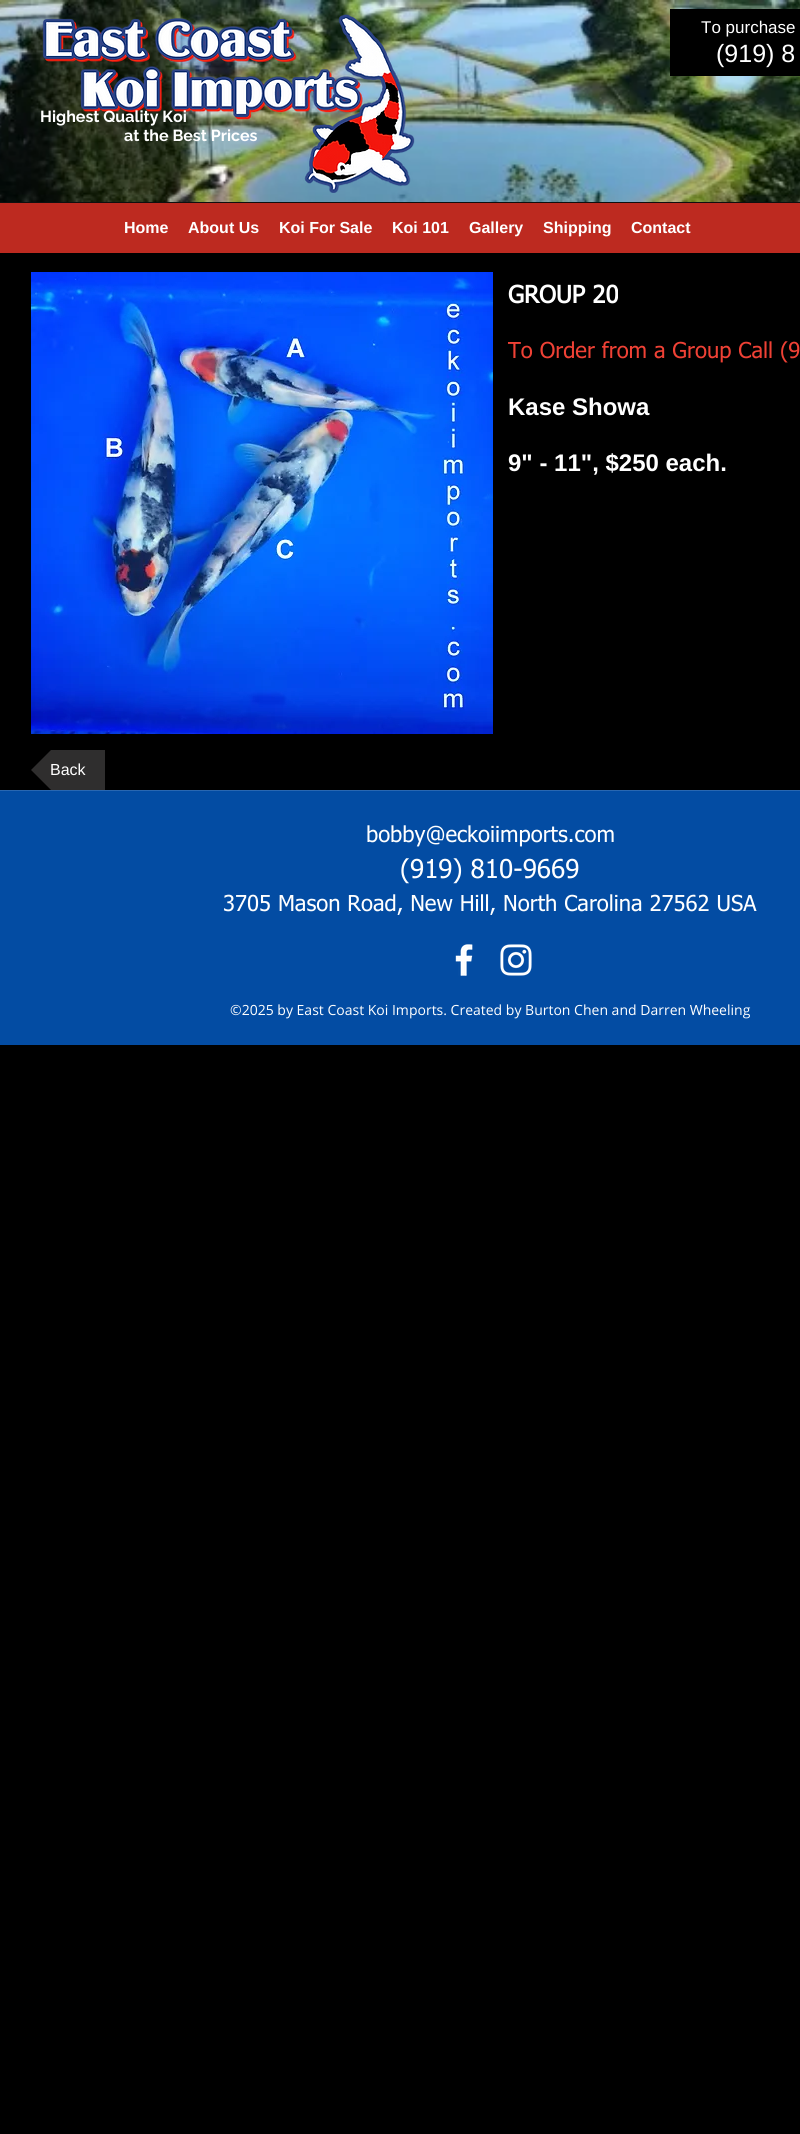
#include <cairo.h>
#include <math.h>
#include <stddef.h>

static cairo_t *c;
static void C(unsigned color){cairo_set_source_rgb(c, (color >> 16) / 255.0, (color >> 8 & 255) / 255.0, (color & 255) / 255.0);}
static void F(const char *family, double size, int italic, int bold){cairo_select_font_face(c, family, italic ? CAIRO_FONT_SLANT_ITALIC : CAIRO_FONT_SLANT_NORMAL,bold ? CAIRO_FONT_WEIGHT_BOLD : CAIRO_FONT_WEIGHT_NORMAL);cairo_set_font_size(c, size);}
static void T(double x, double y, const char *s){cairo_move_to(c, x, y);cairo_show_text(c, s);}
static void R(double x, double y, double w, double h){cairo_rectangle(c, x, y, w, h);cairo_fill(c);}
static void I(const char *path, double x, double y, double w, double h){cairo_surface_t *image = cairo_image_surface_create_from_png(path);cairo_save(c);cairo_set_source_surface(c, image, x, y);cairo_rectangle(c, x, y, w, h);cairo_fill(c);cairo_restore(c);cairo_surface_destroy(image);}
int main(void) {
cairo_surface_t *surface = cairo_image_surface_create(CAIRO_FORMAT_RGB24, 800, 2134);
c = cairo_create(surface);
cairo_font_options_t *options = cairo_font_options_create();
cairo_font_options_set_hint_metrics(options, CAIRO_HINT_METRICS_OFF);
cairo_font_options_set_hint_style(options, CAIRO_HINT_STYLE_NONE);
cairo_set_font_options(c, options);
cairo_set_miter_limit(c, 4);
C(0x000000);
cairo_paint(c);
I("1.png",0,0,800,202);
I("2.png",42,14,373,179);
C(0x000000);
R(670,9,130,67);
F("Liberation Sans",17,0,0);
C(0xffffff);
T(701,33,"To purchase");
F("Liberation Sans",25,0,0);
T(716,62,"(919) 8");
F("Raleway",16,0,1);
T(40,122,"Highest Quality Koi");
T(124,141,"at the Best Prices");
C(0xbd2a20);
R(0,203,800,50);
F("Liberation Sans",16,0,1);
C(0xffffff);
T(124,233,"Home");
T(188,233,"About Us");
T(279,233,"Koi For Sale");
T(392,233,"Koi 101");
T(469,233,"Gallery");
T(543,233,"Shipping");
T(631,233,"Contact");
I("3.png",0,202,800,1);
I("4.png",31,272,462,462);
F("tahoma",24,0,1);
T(508,303,"GROUP 20");
F("tahoma",22,0,0);
C(0xef4135);
T(508,358,"To Order from a Group Call (9");
F("Liberation Sans",24,0,1);
C(0xffffff);
T(508,415,"Kase Showa");
T(508,471,"9\" - 11\", $250 each.");
cairo_save(c);
cairo_rectangle(c,31,750,74,40);
cairo_clip(c);
C(0x2f2e2e);
cairo_new_path(c);
cairo_move_to(c,81,770);
cairo_line_to(c,31,770);
cairo_line_to(c,81,720);
cairo_close_path(c);
cairo_fill(c);
cairo_restore(c);
C(0x2f2e2e);
R(81,750,24,40);
cairo_new_path(c);
cairo_move_to(c,31,770);
cairo_line_to(c,81,770);
cairo_line_to(c,81,820);
cairo_close_path(c);
cairo_fill(c);
F("Liberation Sans",16,0,0);
C(0xffffff);
T(50,775,"Back");
C(0x034ca3);
R(0,791,800,254);
C(0x2967b1);
R(0,790,800,1);
F("tahoma",22,0,0);
C(0xffffff);
T(366,842,"bobby@eckoiimports.com");
F("tahoma",26,0,0);
T(400,878,"(919) 810-9669");
F("tahoma",22,0,0);
T(223,911,"3705 Mason Road, New Hill, North Carolina 27562 USA");
I("5.png",455,944,18,32);
I("6.png",500,944,32,32);
F("Open Sans",14,0,0);
T(230,1015,"©2025 by East Coast Koi Imports. Created by Burton Chen and Darren Wheeling");
cairo_surface_write_to_png(surface, "o.png");
cairo_font_options_destroy(options);
cairo_destroy(c);
cairo_surface_destroy(surface);
return 0;
}
